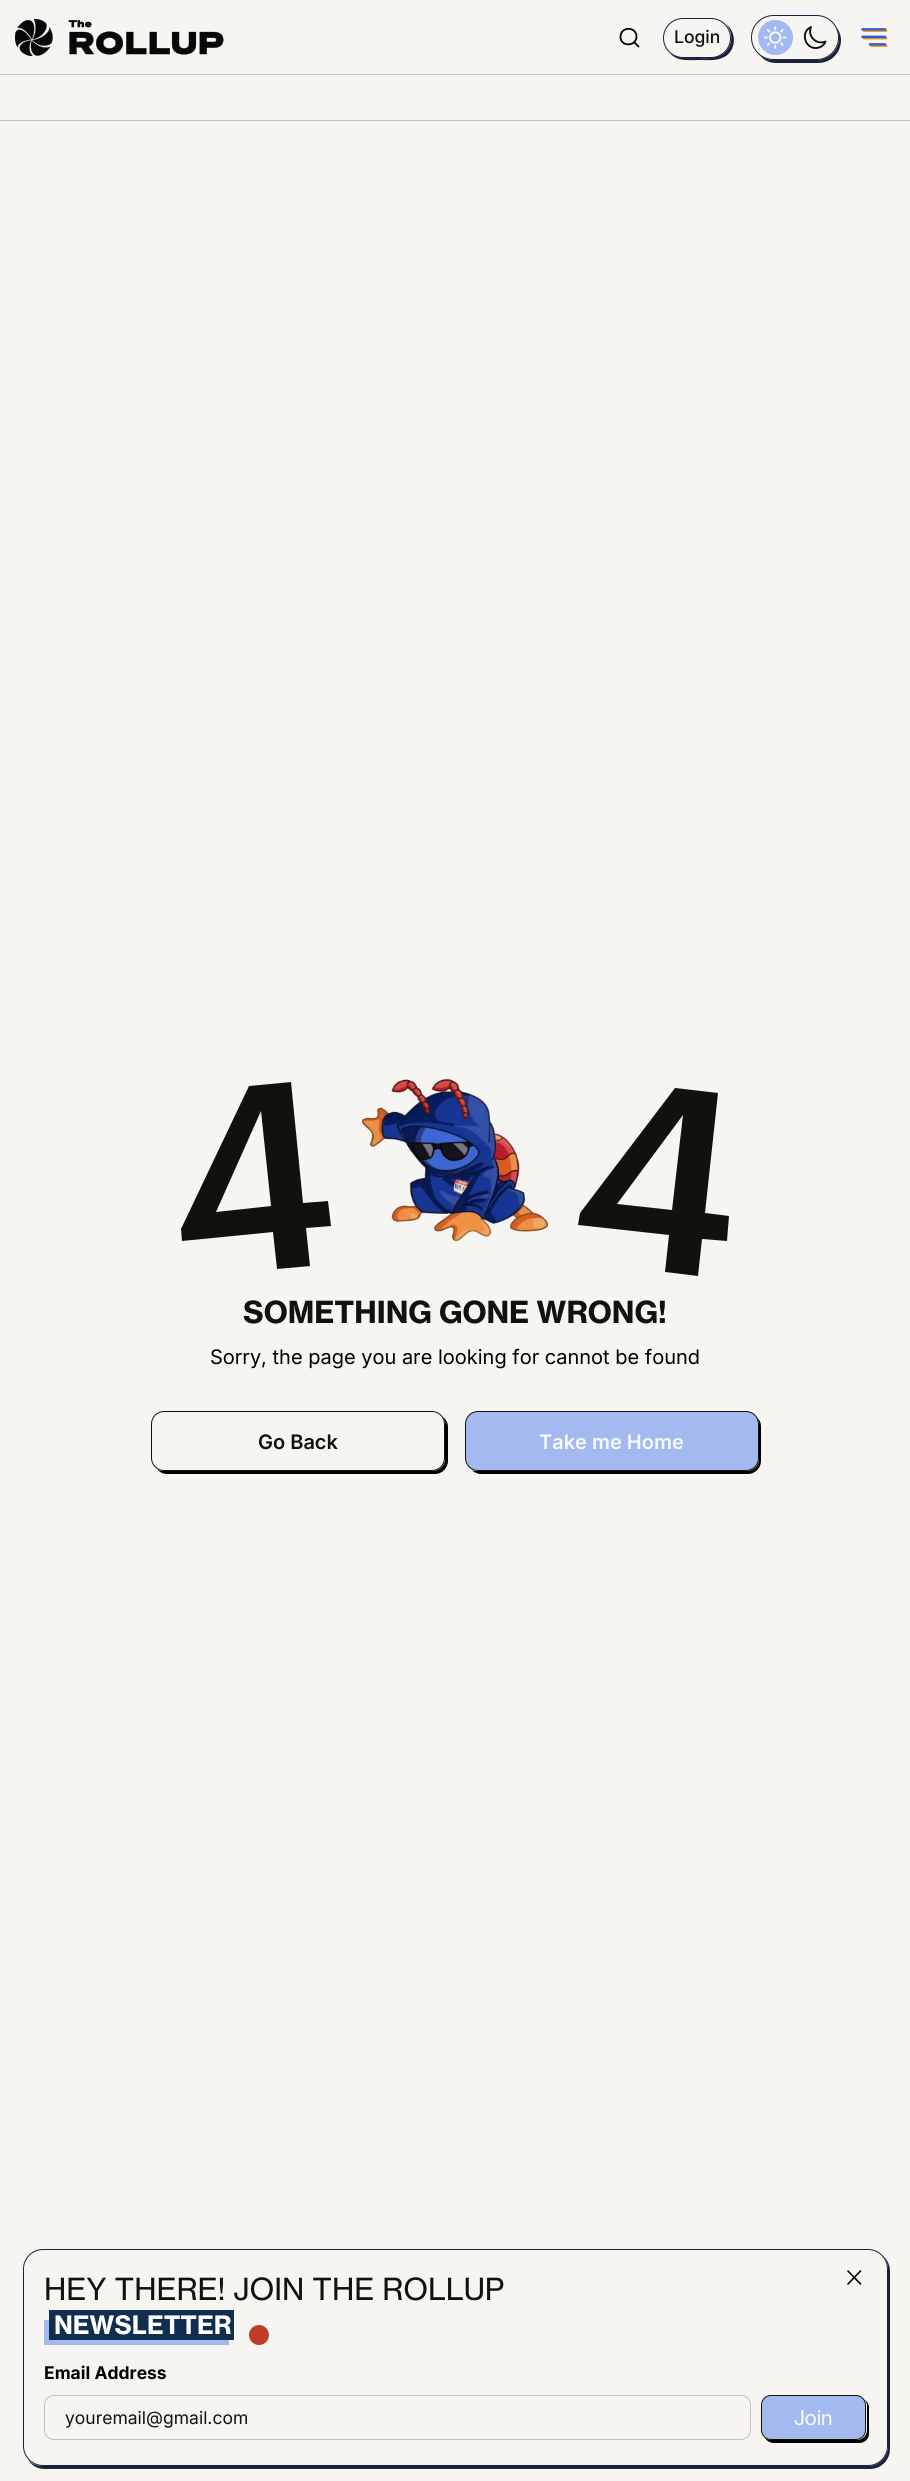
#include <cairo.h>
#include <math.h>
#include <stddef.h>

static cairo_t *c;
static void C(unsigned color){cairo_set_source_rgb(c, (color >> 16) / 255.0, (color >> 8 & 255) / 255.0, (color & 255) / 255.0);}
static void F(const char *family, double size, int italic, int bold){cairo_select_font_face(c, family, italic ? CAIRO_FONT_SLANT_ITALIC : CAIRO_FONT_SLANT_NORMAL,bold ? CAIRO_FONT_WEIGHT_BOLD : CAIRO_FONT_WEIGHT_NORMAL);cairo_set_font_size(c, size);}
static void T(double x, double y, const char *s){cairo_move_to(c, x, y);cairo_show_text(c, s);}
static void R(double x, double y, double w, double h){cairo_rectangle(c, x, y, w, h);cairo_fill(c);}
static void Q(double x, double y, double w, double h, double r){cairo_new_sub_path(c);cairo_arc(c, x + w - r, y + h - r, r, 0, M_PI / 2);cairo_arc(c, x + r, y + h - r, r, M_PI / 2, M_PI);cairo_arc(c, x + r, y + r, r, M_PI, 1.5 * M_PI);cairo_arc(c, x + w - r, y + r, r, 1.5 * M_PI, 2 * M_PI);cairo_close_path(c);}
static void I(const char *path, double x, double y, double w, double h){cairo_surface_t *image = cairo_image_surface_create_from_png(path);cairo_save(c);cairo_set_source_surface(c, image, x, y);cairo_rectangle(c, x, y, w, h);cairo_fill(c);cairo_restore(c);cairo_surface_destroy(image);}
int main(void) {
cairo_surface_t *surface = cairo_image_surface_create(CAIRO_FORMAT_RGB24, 910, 2481);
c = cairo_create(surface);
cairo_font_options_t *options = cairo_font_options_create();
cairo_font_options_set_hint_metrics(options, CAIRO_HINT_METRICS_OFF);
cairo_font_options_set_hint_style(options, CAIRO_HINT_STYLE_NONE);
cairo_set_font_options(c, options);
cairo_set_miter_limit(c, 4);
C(0xf6f5f2);
cairo_paint(c);
C(0xc7c3ad);
R(0,74,910,1);
I("1.png",15,19,209,37);
cairo_new_path(c);
cairo_move_to(c,638.5,46.5);
cairo_line_to(c,634,42);
cairo_move_to(c,636.5,36.5);
cairo_curve_to(c,636.5,47,620,47,620.5,36.5);
cairo_curve_to(c,621,26,636.5,26.5,636.5,36.5);
C(0x000000);
cairo_set_line_width(c,1.8);
cairo_set_line_cap(c,CAIRO_LINE_CAP_ROUND);
cairo_set_line_join(c,CAIRO_LINE_JOIN_ROUND);
cairo_stroke(c);
C(0x1b213a);
cairo_new_path(c);
cairo_move_to(c,670,53);
cairo_curve_to(c,677,62,689,60,700,60);
cairo_curve_to(c,707,60,715,61,722,58);
cairo_curve_to(c,736,53,738,33,726,24);
cairo_curve_to(c,735,34,732,51,719,56);
cairo_curve_to(c,712,59,704,58,697,58);
cairo_curve_to(c,688,58,677,59,670,53);
cairo_close_path(c);
cairo_fill(c);
Q(663.5,18.5,67,39,19.5);
cairo_set_line_width(c,1);
cairo_set_line_cap(c,CAIRO_LINE_CAP_BUTT);
cairo_set_line_join(c,CAIRO_LINE_JOIN_MITER);
cairo_stroke(c);
F("Inter Medium",17.5,0,0);
C(0x12120d);
T(674,43,"Login");
C(0x1b213a);
cairo_new_path(c);
cairo_move_to(c,759,54);
cairo_curve_to(c,763,60,769,63,776,63);
cairo_line_to(c,818,63);
cairo_curve_to(c,831,63,841,53,841,40);
cairo_curve_to(c,841,35,839,30,835,26);
cairo_curve_to(c,837,29,839,33,839,38);
cairo_curve_to(c,839,50,829,60,816,60);
cairo_line_to(c,774,60);
cairo_curve_to(c,768,60,763,58,759,54);
cairo_close_path(c);
cairo_fill(c);
C(0xf6f5f2);
Q(751.5,15.5,87,44,22);
cairo_fill_preserve(c);
C(0x1b213a);
cairo_stroke(c);
C(0xa4b9ef);
cairo_arc(c,775.5,37.5,17.5,0,2 * M_PI);
cairo_fill(c);
I("2.png",763,26,24,23);
cairo_new_path(c);
cairo_move_to(c,825.5,41.5);
cairo_curve_to(c,816.5,45.5,807,36,811,27);
cairo_curve_to(c,799,32.5,806,51.5,819,47.5);
cairo_curve_to(c,822,46.5,824.5,44.5,825.5,41.5);
cairo_close_path(c);
C(0x12120d);
cairo_set_line_width(c,1.9);
cairo_set_line_cap(c,CAIRO_LINE_CAP_ROUND);
cairo_set_line_join(c,CAIRO_LINE_JOIN_ROUND);
cairo_stroke(c);
I("3.png",861,28,27,19);
C(0xc7c3ad);
R(0,120,910,1);
C(0x12120d);
cairo_new_path(c);
cairo_move_to(c,277,1269);
cairo_line_to(c,273,1232);
cairo_line_to(c,182,1241);
cairo_line_to(c,181,1229);
cairo_line_to(c,249,1086);
cairo_line_to(c,291,1082);
cairo_line_to(c,303,1203);
cairo_line_to(c,328,1201);
cairo_line_to(c,331,1226);
cairo_line_to(c,306,1228);
cairo_line_to(c,310,1266);
cairo_close_path(c);
cairo_move_to(c,216,1212);
cairo_line_to(c,271,1206);
cairo_line_to(c,261,1111);
cairo_close_path(c);
cairo_fill(c);
I("4.png",362,1078,186,164);
cairo_new_path(c);
cairo_move_to(c,665,1272);
cairo_line_to(c,669,1235);
cairo_line_to(c,578,1225);
cairo_line_to(c,580,1213);
cairo_line_to(c,675,1088);
cairo_line_to(c,718,1093);
cairo_line_to(c,705,1213);
cairo_line_to(c,729,1216);
cairo_line_to(c,727,1241);
cairo_line_to(c,702,1239);
cairo_line_to(c,698,1276);
cairo_close_path(c);
cairo_move_to(c,617,1204);
cairo_line_to(c,672,1210);
cairo_line_to(c,683,1115);
cairo_close_path(c);
cairo_fill(c);
F("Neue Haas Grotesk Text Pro",30,0,1);
T(243,1323,"SOMETHING GONE WRONG!");
F("Inter",20,0,0);
C(0x000000);
T(210,1364,"Sorry, the page you are looking for cannot be found");
cairo_new_path(c);
cairo_move_to(c,157,1469);
cairo_curve_to(c,159,1472,163,1474,167,1474);
cairo_line_to(c,435,1474);
cairo_curve_to(c,442,1474,448,1468,448,1461);
cairo_line_to(c,448,1427);
cairo_curve_to(c,448,1423,446,1419,443,1417);
cairo_curve_to(c,444,1419,445,1421,445,1424);
cairo_line_to(c,445,1459);
cairo_curve_to(c,445,1466,439,1471,432,1471);
cairo_line_to(c,164,1471);
cairo_curve_to(c,161,1471,159,1471,157,1469);
cairo_close_path(c);
cairo_fill(c);
C(0xf6f5f2);
Q(151.5,1411.5,293,59,12.5);
cairo_fill_preserve(c);
C(0x12120d);
cairo_set_line_width(c,1);
cairo_set_line_cap(c,CAIRO_LINE_CAP_BUTT);
cairo_set_line_join(c,CAIRO_LINE_JOIN_MITER);
cairo_stroke(c);
F("Inter SemiBold",20,0,0);
T(258,1449,"Go Back");
C(0x000000);
cairo_new_path(c);
cairo_move_to(c,471,1470);
cairo_curve_to(c,474,1472,477,1474,481,1474);
cairo_line_to(c,748,1474);
cairo_curve_to(c,755,1474,761,1468,761,1461);
cairo_line_to(c,761,1427);
cairo_curve_to(c,761,1423,760,1420,757,1418);
cairo_curve_to(c,758,1420,759,1422,759,1424);
cairo_line_to(c,759,1459);
cairo_curve_to(c,759,1466,753,1471,746,1471);
cairo_line_to(c,478,1471);
cairo_curve_to(c,475,1471,473,1471,471,1470);
cairo_close_path(c);
cairo_fill(c);
C(0xa4b9ef);
Q(465.5,1411.5,293,59,12.5);
cairo_fill_preserve(c);
C(0x12120d);
cairo_stroke(c);
C(0xf7faff);
T(539,1449,"Take me Home");
C(0x1b213a);
cairo_new_path(c);
cairo_move_to(c,28,2460);
cairo_curve_to(c,32,2466,38,2469,45,2469);
cairo_line_to(c,870,2469);
cairo_curve_to(c,881,2469,890,2460,890,2449);
cairo_line_to(c,890,2271);
cairo_curve_to(c,890,2265,887,2259,883,2256);
cairo_curve_to(c,886,2259,888,2264,888,2269);
cairo_line_to(c,888,2446);
cairo_curve_to(c,888,2457,879,2466,868,2466);
cairo_line_to(c,43,2466);
cairo_curve_to(c,37,2466,32,2464,28,2460);
cairo_close_path(c);
cairo_fill(c);
C(0xf6f5f2);
Q(23.5,2249.5,864,216,19.5);
cairo_fill_preserve(c);
C(0x1b213a);
cairo_stroke(c);
F("Neue Haas Grotesk Text Pro",30,0,0);
C(0x12120d);
T(44,2300,"HEY THERE! JOIN THE ROLLUP");
C(0xa4b9ef);
R(44,2320,185,25);
C(0x102e50);
R(49,2310,185,30);
F("Neue Haas Grotesk Text Pro",25,0,1);
C(0xffffff);
T(54,2334,"NEWSLETTER");
C(0xbe3d2a);
cairo_new_path(c);
cairo_arc(c,259,2335,10,0,2 * M_PI);
cairo_fill(c);
F("Inter",17.5,0,1);
C(0x000000);
T(44,2379,"Email Address");
Q(44.5,2395.5,706,44,9.5);
C(0xc7c3ad);
cairo_stroke(c);
F("Inter",17.5,0,0);
C(0x12120d);
T(65,2424,"youremail@gmail.com");
C(0x000000);
cairo_new_path(c);
cairo_move_to(c,765,2438);
cairo_curve_to(c,767,2441,770,2443,774,2443);
cairo_line_to(c,859,2443);
cairo_curve_to(c,865,2443,869,2439,869,2433);
cairo_line_to(c,869,2408);
cairo_curve_to(c,869,2405,868,2402,865,2400);
cairo_curve_to(c,866,2402,867,2403,867,2405);
cairo_line_to(c,867,2430);
cairo_curve_to(c,867,2436,862,2440,857,2440);
cairo_line_to(c,772,2440);
cairo_curve_to(c,769,2440,767,2439,765,2438);
cairo_close_path(c);
cairo_fill(c);
C(0xa4b9ef);
Q(761.5,2395.5,104,44,9.5);
cairo_fill_preserve(c);
C(0x12120d);
cairo_stroke(c);
F("Neue Haas Grotesk Text Pro",20,0,0);
C(0xf7faff);
T(794,2425,"Join");
cairo_new_path(c);
cairo_move_to(c,860.5,2271);
cairo_line_to(c,848,2284);
cairo_move_to(c,848,2271);
cairo_line_to(c,860.5,2284);
C(0x000000);
cairo_set_line_width(c,1.6);
cairo_set_line_cap(c,CAIRO_LINE_CAP_ROUND);
cairo_set_line_join(c,CAIRO_LINE_JOIN_ROUND);
cairo_stroke(c);
cairo_surface_write_to_png(surface, "o.png");
cairo_font_options_destroy(options);
cairo_destroy(c);
cairo_surface_destroy(surface);
return 0;
}
